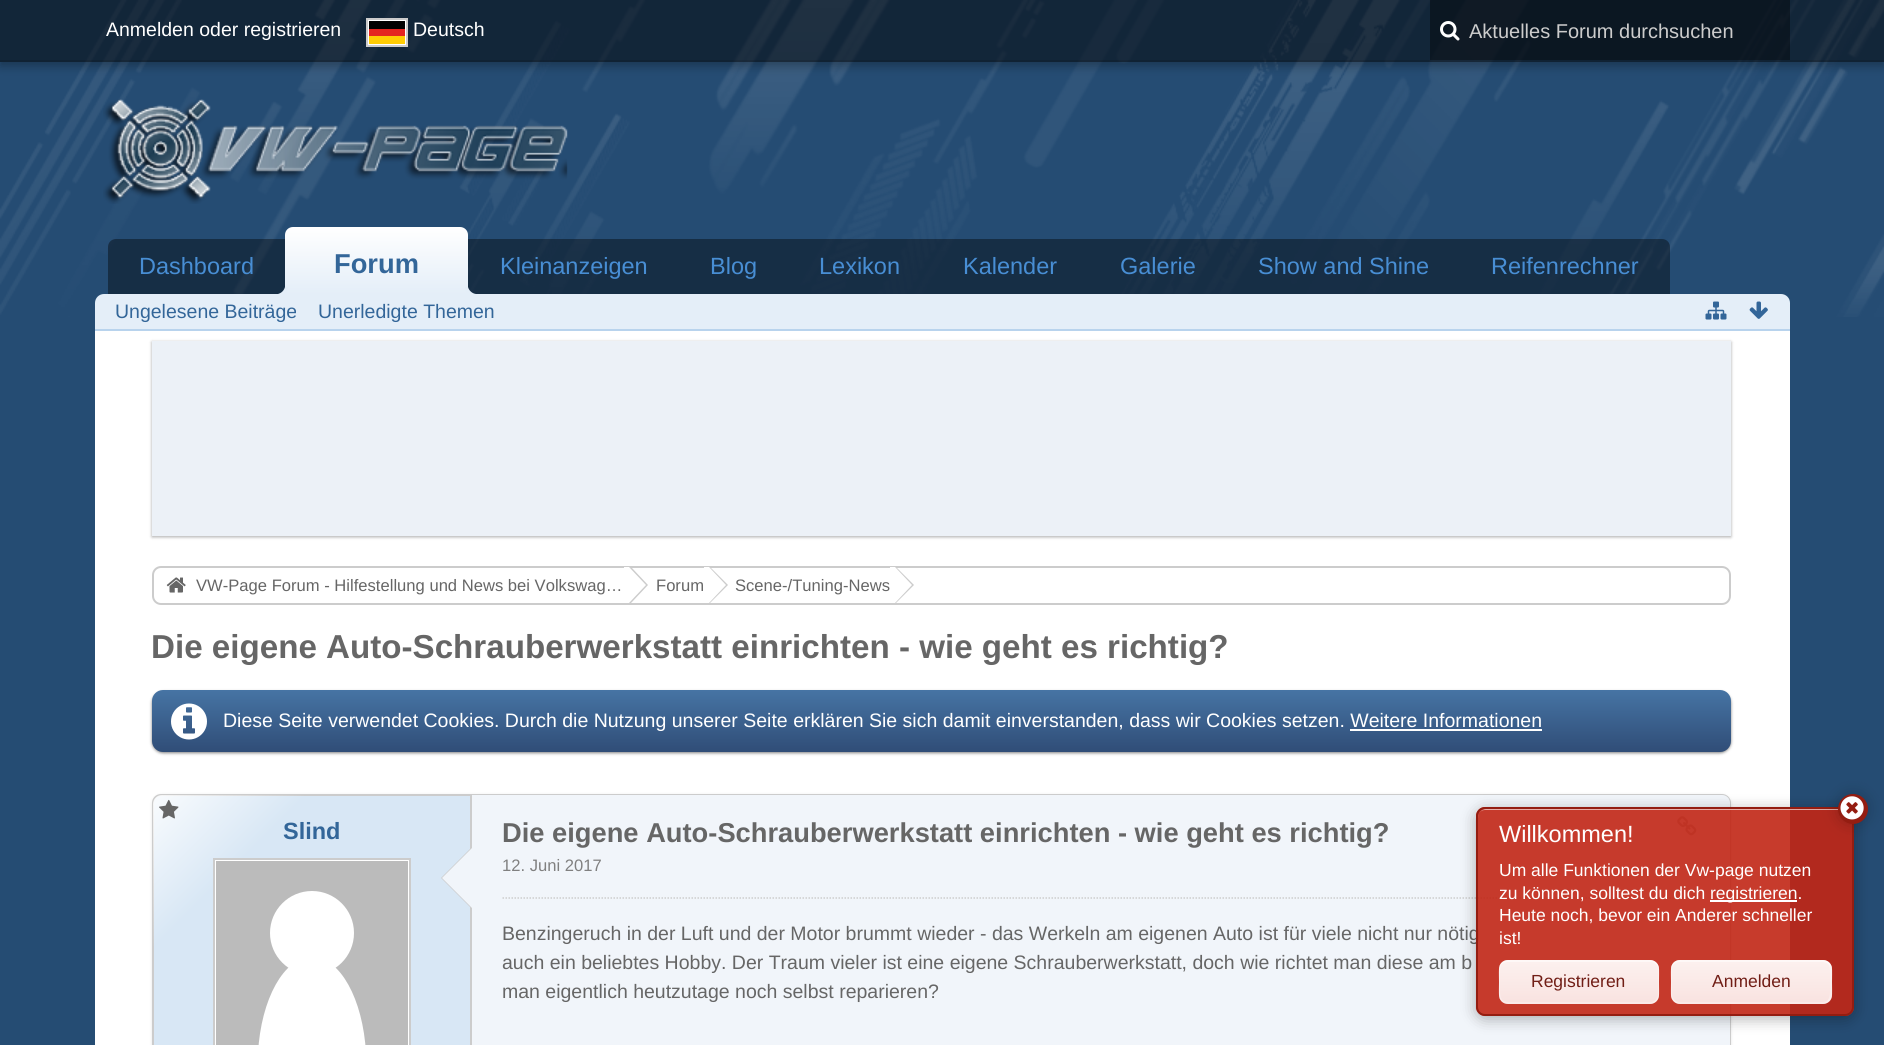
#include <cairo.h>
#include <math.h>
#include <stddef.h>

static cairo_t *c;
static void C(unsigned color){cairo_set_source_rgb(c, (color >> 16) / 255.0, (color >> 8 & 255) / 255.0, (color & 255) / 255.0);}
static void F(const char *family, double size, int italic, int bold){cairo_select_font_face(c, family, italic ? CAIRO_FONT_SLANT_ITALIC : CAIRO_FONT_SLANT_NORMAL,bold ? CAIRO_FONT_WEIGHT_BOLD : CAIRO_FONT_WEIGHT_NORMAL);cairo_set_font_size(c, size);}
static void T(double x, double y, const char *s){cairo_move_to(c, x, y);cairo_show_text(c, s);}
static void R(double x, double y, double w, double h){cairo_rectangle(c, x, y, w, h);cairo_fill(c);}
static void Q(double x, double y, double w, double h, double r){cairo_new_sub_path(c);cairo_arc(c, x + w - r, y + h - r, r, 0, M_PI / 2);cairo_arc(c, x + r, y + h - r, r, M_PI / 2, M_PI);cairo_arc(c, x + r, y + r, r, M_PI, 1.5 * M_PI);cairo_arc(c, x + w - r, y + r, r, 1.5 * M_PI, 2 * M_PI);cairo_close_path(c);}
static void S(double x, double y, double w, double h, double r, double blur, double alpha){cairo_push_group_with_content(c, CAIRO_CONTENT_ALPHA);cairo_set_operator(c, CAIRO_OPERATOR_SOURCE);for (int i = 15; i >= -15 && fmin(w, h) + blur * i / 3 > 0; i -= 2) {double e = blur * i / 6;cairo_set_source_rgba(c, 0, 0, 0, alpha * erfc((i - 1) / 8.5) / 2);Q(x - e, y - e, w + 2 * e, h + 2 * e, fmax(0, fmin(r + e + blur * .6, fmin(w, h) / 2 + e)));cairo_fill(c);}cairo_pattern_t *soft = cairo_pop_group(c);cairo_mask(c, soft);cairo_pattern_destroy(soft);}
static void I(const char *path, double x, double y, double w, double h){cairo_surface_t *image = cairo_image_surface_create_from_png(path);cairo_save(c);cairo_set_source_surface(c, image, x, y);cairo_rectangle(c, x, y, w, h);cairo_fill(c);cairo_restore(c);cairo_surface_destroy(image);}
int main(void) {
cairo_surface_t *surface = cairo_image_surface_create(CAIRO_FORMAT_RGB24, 1884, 1045);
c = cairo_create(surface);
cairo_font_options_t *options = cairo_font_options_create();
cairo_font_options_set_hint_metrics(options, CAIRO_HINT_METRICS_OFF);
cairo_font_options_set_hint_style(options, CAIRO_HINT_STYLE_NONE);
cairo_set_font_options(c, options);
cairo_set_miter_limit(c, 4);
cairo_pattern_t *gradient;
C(0x254c73);
cairo_paint(c);
I("1.png",0,0,1884,317);
cairo_save(c);
cairo_set_fill_rule(c,CAIRO_FILL_RULE_EVEN_ODD);
cairo_new_path(c);
cairo_move_to(c,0,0);
cairo_line_to(c,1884,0);
cairo_line_to(c,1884,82);
cairo_line_to(c,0,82);
cairo_close_path(c);
cairo_move_to(c,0,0);
cairo_line_to(c,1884,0);
cairo_line_to(c,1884,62);
cairo_line_to(c,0,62);
cairo_close_path(c);
cairo_clip(c);
C(0x000000);
S(0,5,1884,61,0,5,.3);
cairo_restore(c);
cairo_set_source_rgba(c,0,0,0,0.5);
R(0,0,1884,62);
cairo_set_source_rgba(c,0,0,0,0.1);
R(0,60,1884,2);
F("Liberation Sans",19.5,0,0);
C(0xffffff);
T(106,36,"Anmelden oder registrieren");
cairo_rectangle(c,367,19,40,27);
cairo_fill_preserve(c);
C(0xcccccc);
cairo_stroke(c);
C(0x010202);
R(369,21,36,8);
C(0xe52420);
R(369,29,36,7);
C(0xffcc04);
R(369,36,36,8);
C(0xffffff);
T(413,36,"Deutsch");
cairo_set_source_rgba(c,0,0,0,0.4);
R(1430,0,360,60);
I("2.png",1440,21,20,20);
F("Liberation Sans",20,0,0);
C(0xcccccc);
T(1469,38,"Aktuelles Forum durchsuchen");
I("3.png",103,99,465,105);
cairo_set_source_rgba(c,0,0,0,0.4);
cairo_new_path(c);
cairo_move_to(c,116,239);
cairo_line_to(c,1662,239);
cairo_curve_to(c,1666.5,239,1670,242.5,1670,247);
cairo_line_to(c,1670,294);
cairo_line_to(c,108,294);
cairo_line_to(c,108,247);
cairo_curve_to(c,108,242.5,111.5,239,116,239);
cairo_close_path(c);
cairo_fill(c);
F("Liberation Sans",23.5,0,0);
C(0x488ed4);
T(139,274,"Dashboard");
gradient = cairo_pattern_create_linear(377,227,377,294);
cairo_pattern_add_color_stop_rgba(gradient,0,1,1,1,1);
cairo_pattern_add_color_stop_rgba(gradient,1,0.894,0.933,0.973,1);
cairo_set_source(c,gradient);
cairo_pattern_destroy(gradient);
cairo_new_path(c);
cairo_move_to(c,293,227);
cairo_line_to(c,460,227);
cairo_curve_to(c,464.5,227,468,230.5,468,235);
cairo_line_to(c,468,294);
cairo_line_to(c,285,294);
cairo_line_to(c,285,235);
cairo_curve_to(c,285,230.5,288.5,227,293,227);
cairo_close_path(c);
cairo_fill(c);
F("Liberation Sans",27.3,0,1);
C(0x336699);
T(334,273,"Forum");
C(0xe4eef8);
cairo_new_path(c);
cairo_move_to(c,104,294);
cairo_line_to(c,1781,294);
cairo_curve_to(c,1786,294,1790,298,1790,303);
cairo_line_to(c,1790,330);
cairo_line_to(c,95,330);
cairo_line_to(c,95,303);
cairo_curve_to(c,95,298,99,294,104,294);
cairo_close_path(c);
cairo_fill(c);
cairo_new_path(c);
cairo_move_to(c,278,294);
cairo_line_to(c,278,297);
cairo_curve_to(c,284.5,297,288,293.5,288,287);
cairo_line_to(c,285,287);
cairo_curve_to(c,284,290.5,281.5,293,278,294);
cairo_close_path(c);
cairo_fill(c);
cairo_new_path(c);
cairo_move_to(c,465,287);
cairo_curve_to(c,465,294.5,469.5,297,476,297);
cairo_line_to(c,476,294);
cairo_curve_to(c,472,293.5,469,290.5,468,287);
cairo_close_path(c);
cairo_fill(c);
F("Liberation Sans",23.5,0,0);
C(0x488ed4);
T(500,274,"Kleinanzeigen");
T(710,274,"Blog");
T(819,274,"Lexikon");
T(963,274,"Kalender");
T(1120,274,"Galerie");
T(1258,274,"Show and Shine");
T(1491,274,"Reifenrechner");
C(0xb8d3ed);
R(95,329,1695,2);
F("Liberation Sans",19.5,0,0);
C(0x336699);
T(115,318,"Ungelesene Beiträge");
T(318,318,"Unerledigte Themen");
I("4.png",1705,301,22,19);
I("5.png",1749,301,19,18);
C(0xffffff);
R(95,331,1695,714);
C(0x000000);
S(152,342,1579,195,0,1.5,.24);
S(152,342,1579,195,0,2,.12);
C(0xecf1f7);
R(152,341,1579,195);
Q(153,567,1577,37,8);
C(0xcccccc);
cairo_stroke(c);
I("6.png",166,577,20,16);
F("Liberation Sans",16.6,0,0);
C(0x666666);
T(196,591,"VW-Page Forum - Hilfestellung und News bei Volkswag…");
C(0xcccccc);
cairo_new_path(c);
cairo_move_to(c,631,567);
cairo_line_to(c,648,585);
cairo_line_to(c,631,603);
cairo_line_to(c,626,603);
cairo_line_to(c,626,567);
cairo_close_path(c);
cairo_fill(c);
C(0xffffff);
cairo_new_path(c);
cairo_move_to(c,629,567);
cairo_line_to(c,646,585);
cairo_line_to(c,629,603);
cairo_line_to(c,624,603);
cairo_line_to(c,624,567);
cairo_close_path(c);
cairo_fill(c);
C(0x666666);
T(656,591,"Forum");
C(0xcccccc);
cairo_new_path(c);
cairo_move_to(c,710,567);
cairo_line_to(c,728,585);
cairo_line_to(c,710,603);
cairo_line_to(c,705,603);
cairo_line_to(c,705,567);
cairo_close_path(c);
cairo_fill(c);
C(0xffffff);
cairo_new_path(c);
cairo_move_to(c,709,567);
cairo_line_to(c,726,585);
cairo_line_to(c,709,603);
cairo_line_to(c,704,603);
cairo_line_to(c,704,567);
cairo_close_path(c);
cairo_fill(c);
C(0x666666);
T(735,591,"Scene-/Tuning-News");
C(0xcccccc);
cairo_new_path(c);
cairo_move_to(c,896,567);
cairo_line_to(c,914,585);
cairo_line_to(c,896,603);
cairo_line_to(c,891,603);
cairo_line_to(c,891,567);
cairo_close_path(c);
cairo_fill(c);
C(0xffffff);
cairo_new_path(c);
cairo_move_to(c,895,567);
cairo_line_to(c,912,585);
cairo_line_to(c,895,603);
cairo_line_to(c,890,603);
cairo_line_to(c,890,567);
cairo_close_path(c);
cairo_fill(c);
F("Liberation Sans",33.15,0,1);
C(0x666666);
T(151,658,"Die eigene Auto-Schrauberwerkstatt einrichten - wie geht es richtig?");
C(0x000000);
S(152,692,1579,61,11,1.5,.5);
gradient = cairo_pattern_create_linear(941,690,941,752);
cairo_pattern_add_color_stop_rgba(gradient,0,0.275,0.455,0.643,1);
cairo_pattern_add_color_stop_rgba(gradient,1,0.188,0.302,0.467,1);
cairo_set_source(c,gradient);
cairo_pattern_destroy(gradient);
Q(152,690,1579,62,11);
cairo_fill(c);
I("7.png",171,703,36,37);
F("Liberation Sans",19.5,0,0);
C(0xffffff);
T(223,727,"Diese Seite verwendet Cookies. Durch die Nutzung unserer Seite erklären Sie sich damit einverstanden, dass wir Cookies setzen. Weitere Informationen");
R(1350,729,192,2);
C(0x000000);
S(152,795,1579,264,9,1.5,.1);
C(0xd8e7f5);
Q(153,795,1577,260,8);
cairo_fill_preserve(c);
C(0xcccccc);
cairo_stroke(c);
gradient = cairo_pattern_create_linear(153,795,345,987);
cairo_pattern_add_color_stop_rgba(gradient,0,1,1,1,.85);
cairo_pattern_add_color_stop_rgba(gradient,.4,1,1,1,0);
cairo_set_source(c,gradient);
cairo_pattern_destroy(gradient);
cairo_new_path(c);
cairo_move_to(c,162,795);
cairo_line_to(c,345,795);
cairo_line_to(c,345,987);
cairo_line_to(c,153,987);
cairo_line_to(c,153,804);
cairo_curve_to(c,153,799,157,795,162,795);
cairo_close_path(c);
cairo_fill(c);
I("8.png",159,799,20,20);
F("Liberation Sans",23.5,0,1);
C(0x336699);
T(283,839,"Slind");
C(0xffffff);
cairo_rectangle(c,214,859,196,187);
cairo_fill_preserve(c);
C(0xcccccc);
cairo_stroke(c);
C(0xbbbbbb);
R(216,861,192,184);
C(0xffffff);
cairo_new_path(c);
cairo_move_to(c,258,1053);
cairo_curve_to(c,261,999,284,957,312,957);
cairo_curve_to(c,340,957,363,999,366,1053);
cairo_fill(c);
cairo_arc(c,312,933,42,0,2 * M_PI);
cairo_fill(c);
C(0xf1f5fa);
cairo_new_path(c);
cairo_move_to(c,470,795);
cairo_line_to(c,1722,795);
cairo_curve_to(c,1726.5,795,1730,798.5,1730,803);
cairo_line_to(c,1730,1045);
cairo_curve_to(c,1730,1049.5,1726.5,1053,1722,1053);
cairo_line_to(c,470,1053);
cairo_close_path(c);
cairo_fill(c);
C(0xcccccc);
R(470,795,2,250);
cairo_new_path(c);
cairo_move_to(c,471,848);
cairo_line_to(c,471,908);
cairo_line_to(c,441,878);
cairo_close_path(c);
cairo_fill(c);
F("Liberation Sans",27.3,0,1);
C(0x666666);
T(502,842,"Die eigene Auto-Schrauberwerkstatt einrichten - wie geht es richtig?");
F("Liberation Sans",16.6,0,0);
C(0x808080);
T(502,871,"12. Juni 2017");
I("9.png",1677,816,20,20);
C(0xf1f5fa);
cairo_new_path(c);
cairo_move_to(c,472,848);
cairo_line_to(c,472,908);
cairo_line_to(c,442,878);
cairo_close_path(c);
cairo_fill(c);
cairo_new_path(c);
cairo_move_to(c,502.5,898);
cairo_line_to(c,1698,898);
C(0xcccccc);
cairo_set_line_width(c,1.5);
cairo_set_dash(c,(double[]){1.5,1.5},2,0);
cairo_stroke(c);
F("Liberation Sans",19.5,0,0);
C(0x666666);
T(502,940,"Benzingeruch in der Luft und der Motor brummt wieder - das Werkeln am eigenen Auto ist für viele nicht nur nötig");
T(502,969,"auch ein beliebtes Hobby. Der Traum vieler ist eine eigene Schrauberwerkstatt, doch wie richtet man diese am b");
T(502,998,"man eigentlich heutzutage noch selbst reparieren?");
cairo_save(c);
cairo_set_fill_rule(c,CAIRO_FILL_RULE_EVEN_ODD);
cairo_new_path(c);
cairo_move_to(c,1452,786);
cairo_line_to(c,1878,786);
cairo_line_to(c,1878,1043);
cairo_line_to(c,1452,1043);
cairo_close_path(c);
cairo_move_to(c,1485,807);
cairo_line_to(c,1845,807);
cairo_curve_to(c,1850,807,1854,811,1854,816);
cairo_line_to(c,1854,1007);
cairo_curve_to(c,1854,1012,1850,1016,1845,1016);
cairo_line_to(c,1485,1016);
cairo_curve_to(c,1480,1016,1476,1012,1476,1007);
cairo_line_to(c,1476,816);
cairo_curve_to(c,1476,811,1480,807,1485,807);
cairo_close_path(c);
cairo_clip(c);
C(0x000000);
S(1476,810,378,209,9,7.5,.3);
cairo_restore(c);
cairo_set_source_rgba(c,0.757,0.149,0.086,0.9);
Q(1476,807,378,209,9);
cairo_fill(c);
cairo_set_source_rgba(c,1,1,1,0.6);
cairo_new_path(c);
cairo_move_to(c,1485,810);
cairo_line_to(c,1845,810);
cairo_curve_to(c,1849,810,1852,813,1852,818);
cairo_line_to(c,1852,1008);
cairo_line_to(c,1852,1010);
cairo_curve_to(c,1852,1009,1853,1008,1853,1006);
cairo_line_to(c,1853,817);
cairo_curve_to(c,1853,813,1849,809,1845,809);
cairo_line_to(c,1486,809);
cairo_curve_to(c,1482,809,1478,813,1478,817);
cairo_line_to(c,1478,818);
cairo_curve_to(c,1478,813,1481,810,1485,810);
cairo_close_path(c);
cairo_fill(c);
Q(1477,808,376,207,8);
C(0x941d11);
cairo_set_line_width(c,2);
cairo_set_dash(c,NULL,0,0);
cairo_stroke(c);
F("Liberation Sans",23.5,0,0);
C(0xffffff);
T(1499,842,"Willkommen!");
C(0x000000);
S(1838,794,30,30,15,7.5,.2);
C(0x941d11);
cairo_arc(c,1853,809,15,0,2 * M_PI);
cairo_fill(c);
I("10.png",1840,796,24,24);
F("Liberation Sans",17.5,0,0);
C(0xffffff);
T(1499,876,"Um alle Funktionen der Vw-page nutzen");
T(1499,899,"zu können, solltest du dich");
R(1710,900,87,2);
T(1710,899,"registrieren.");
T(1499,921,"Heute noch, bevor ein Anderer schneller");
T(1499,944,"ist!");
gradient = cairo_pattern_create_linear(1579,960,1579,1004);
cairo_pattern_add_color_stop_rgba(gradient,0,0.988,0.945,0.937,1);
cairo_pattern_add_color_stop_rgba(gradient,1,0.976,0.886,0.878,1);
cairo_set_source(c,gradient);
cairo_pattern_destroy(gradient);
Q(1499,960,160,44,9);
cairo_fill(c);
cairo_set_source_rgba(c,1,1,1,0.25);
cairo_new_path(c);
cairo_move_to(c,1499,997);
cairo_curve_to(c,1500,1001,1504,1004,1508,1004);
cairo_line_to(c,1650,1004);
cairo_curve_to(c,1655,1004,1659,1000,1659,995);
cairo_line_to(c,1659,993);
cairo_curve_to(c,1659,998,1655,1002,1650,1002);
cairo_line_to(c,1508,1002);
cairo_curve_to(c,1505,1002,1501,1000,1499,997);
cairo_close_path(c);
cairo_fill(c);
cairo_set_source_rgba(c,1,1,1,0.3);
cairo_new_path(c);
cairo_move_to(c,1508,960);
cairo_curve_to(c,1496,960,1499,975,1499,982);
cairo_curve_to(c,1499,991,1496,1004,1509,1004);
cairo_curve_to(c,1498,1004,1500,988,1500,982);
cairo_curve_to(c,1500,974,1498,960,1509,960);
cairo_close_path(c);
cairo_fill(c);
cairo_new_path(c);
cairo_move_to(c,1648,1004);
cairo_curve_to(c,1662,1004,1659,992,1659,982);
cairo_curve_to(c,1659,972,1662,960,1648,960);
cairo_curve_to(c,1653,960,1658,964,1658,969);
cairo_line_to(c,1658,994);
cairo_curve_to(c,1658,999,1653,1004,1648,1004);
cairo_close_path(c);
cairo_fill(c);
cairo_set_source_rgba(c,1,1,1,0.5);
cairo_new_path(c);
cairo_move_to(c,1508,962);
cairo_line_to(c,1650,962);
cairo_curve_to(c,1655,962,1659,966,1659,970);
cairo_line_to(c,1659,969);
cairo_curve_to(c,1659,964,1655,960,1650,960);
cairo_line_to(c,1508,960);
cairo_curve_to(c,1504,960,1501,963,1499,966);
cairo_curve_to(c,1501,964,1505,962,1508,962);
cairo_close_path(c);
cairo_fill(c);
C(0x711e16);
T(1531,987,"Registrieren");
gradient = cairo_pattern_create_linear(1751,960,1751,1004);
cairo_pattern_add_color_stop_rgba(gradient,0,0.988,0.945,0.937,1);
cairo_pattern_add_color_stop_rgba(gradient,1,0.976,0.886,0.878,1);
cairo_set_source(c,gradient);
cairo_pattern_destroy(gradient);
Q(1671,960,161,44,9);
cairo_fill(c);
cairo_set_source_rgba(c,1,1,1,0.25);
cairo_new_path(c);
cairo_move_to(c,1671,993);
cairo_line_to(c,1671,995);
cairo_curve_to(c,1671,1000,1675,1004,1680,1004);
cairo_line_to(c,1823,1004);
cairo_curve_to(c,1828,1004,1832,1000,1832,995);
cairo_line_to(c,1832,993);
cairo_curve_to(c,1832,998,1827,1002,1822,1002);
cairo_line_to(c,1680,1002);
cairo_curve_to(c,1675,1002,1671,998,1671,993);
cairo_close_path(c);
cairo_fill(c);
cairo_set_source_rgba(c,1,1,1,0.3);
cairo_new_path(c);
cairo_move_to(c,1680,960);
cairo_curve_to(c,1668,960,1671,975,1671,982);
cairo_curve_to(c,1671,992,1668,1004,1682,1004);
cairo_curve_to(c,1677,1004,1672,999,1672,994);
cairo_line_to(c,1672,969);
cairo_curve_to(c,1672,964,1677,960,1682,960);
cairo_close_path(c);
cairo_fill(c);
cairo_new_path(c);
cairo_move_to(c,1821,1004);
cairo_curve_to(c,1835,1004,1832,992,1832,982);
cairo_curve_to(c,1832,972,1835,960,1821,960);
cairo_curve_to(c,1832,960,1830,974,1830,982);
cairo_curve_to(c,1830,988,1832,1004,1821,1004);
cairo_close_path(c);
cairo_fill(c);
cairo_set_source_rgba(c,1,1,1,0.5);
cairo_new_path(c);
cairo_move_to(c,1680,962);
cairo_line_to(c,1822,962);
cairo_curve_to(c,1827,962,1832,966,1832,970);
cairo_line_to(c,1832,969);
cairo_curve_to(c,1832,964,1828,960,1823,960);
cairo_line_to(c,1680,960);
cairo_curve_to(c,1675,960,1671,964,1671,969);
cairo_line_to(c,1671,970);
cairo_curve_to(c,1671,966,1675,962,1680,962);
cairo_close_path(c);
cairo_fill(c);
C(0x711e16);
T(1712,987,"Anmelden");
cairo_surface_write_to_png(surface, "o.png");
cairo_font_options_destroy(options);
cairo_destroy(c);
cairo_surface_destroy(surface);
return 0;
}
